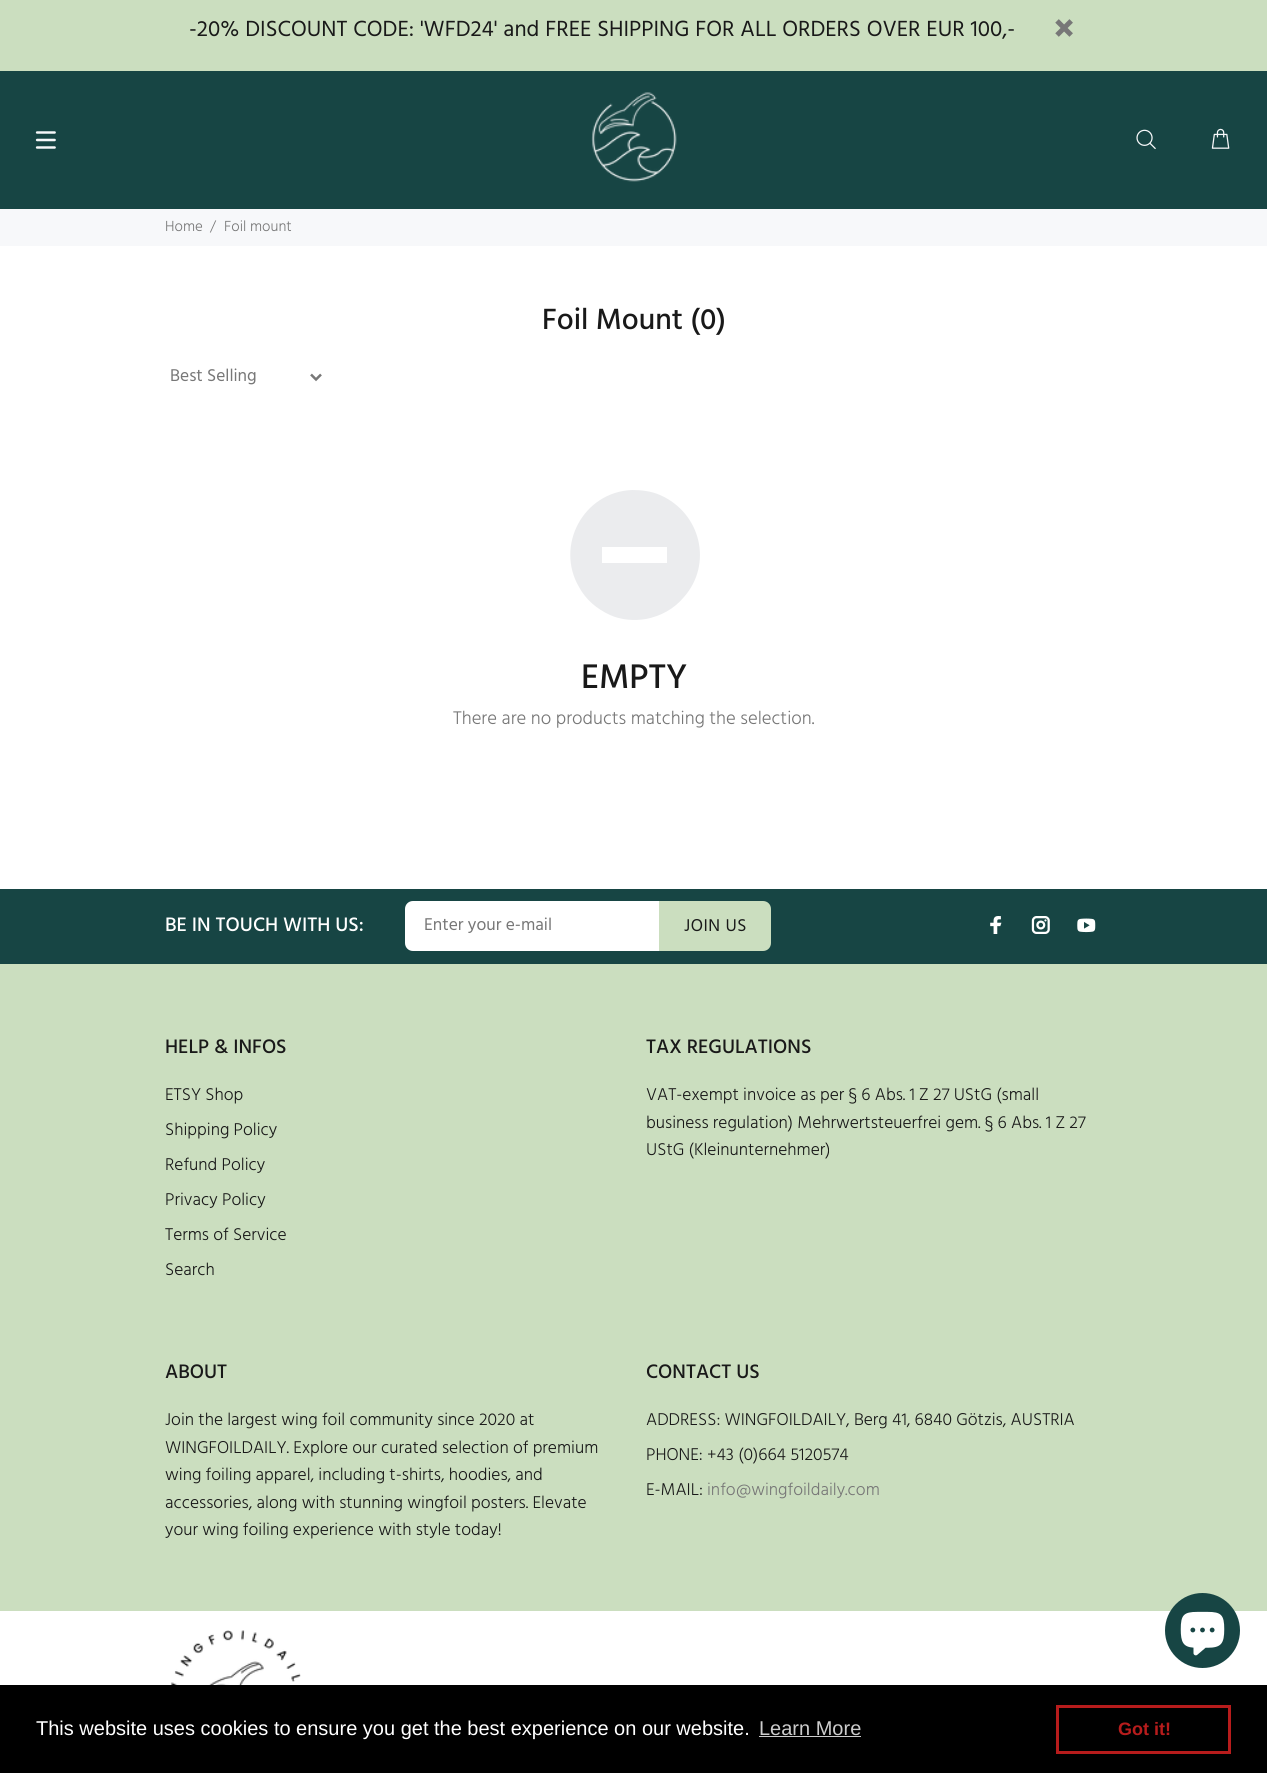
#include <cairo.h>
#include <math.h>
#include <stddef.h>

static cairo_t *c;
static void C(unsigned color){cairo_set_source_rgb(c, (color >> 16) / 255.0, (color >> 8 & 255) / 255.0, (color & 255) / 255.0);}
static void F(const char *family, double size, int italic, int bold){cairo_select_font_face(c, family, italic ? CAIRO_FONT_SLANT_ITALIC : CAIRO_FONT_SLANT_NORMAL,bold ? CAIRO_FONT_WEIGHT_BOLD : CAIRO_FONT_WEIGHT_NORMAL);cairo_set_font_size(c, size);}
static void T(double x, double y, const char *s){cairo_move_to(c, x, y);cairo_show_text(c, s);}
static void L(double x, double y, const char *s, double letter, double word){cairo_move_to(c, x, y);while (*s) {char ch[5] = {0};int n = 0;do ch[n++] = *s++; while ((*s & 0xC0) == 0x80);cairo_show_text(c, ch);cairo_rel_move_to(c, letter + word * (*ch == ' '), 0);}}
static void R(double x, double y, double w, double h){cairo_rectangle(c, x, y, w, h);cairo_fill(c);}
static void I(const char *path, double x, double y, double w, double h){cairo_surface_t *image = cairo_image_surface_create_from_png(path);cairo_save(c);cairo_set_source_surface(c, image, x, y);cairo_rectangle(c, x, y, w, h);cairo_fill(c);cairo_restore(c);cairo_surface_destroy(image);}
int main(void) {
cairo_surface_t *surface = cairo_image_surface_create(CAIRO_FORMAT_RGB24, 1267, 1773);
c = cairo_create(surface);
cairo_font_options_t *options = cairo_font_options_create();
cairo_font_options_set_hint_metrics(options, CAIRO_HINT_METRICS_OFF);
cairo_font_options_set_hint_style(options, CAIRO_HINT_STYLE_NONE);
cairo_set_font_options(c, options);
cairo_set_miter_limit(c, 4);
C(0xffffff);
cairo_paint(c);
C(0x174544);
R(0,71,1267,138);
C(0xcbdebf);
R(0,0,1267,71);
F("Hind",22.5,0,0);
C(0x191919);
L(189,36,"-20% DISCOUNT CODE: 'WFD24' and FREE SHIPPING FOR ALL ORDERS OVER EUR 100,-",0,.5);
I("1.png",1055,19,18,18);
I("2.png",35,131,21,18);
I("3.png",591,92,86,90);
I("4.png",1136,129,20,21);
I("5.png",1211,128,19,21);
C(0xf7f8fa);
R(0,209,1267,37);
F("Hind Light",15,0,0);
C(0x777777);
T(165,231,"Home");
T(210,231,"/");
T(224,231,"Foil mount");
F("Hind Medium",30,0,0);
C(0x191919);
T(542,329,"Foil Mount (0)");
cairo_new_path(c);
cairo_move_to(c,311,374.5);
cairo_line_to(c,316,379.5);
cairo_line_to(c,321,374.5);
C(0x777777);
cairo_set_line_width(c,2.5);
cairo_stroke(c);
F("Hind",17.5,0,0);
T(170,381,"Best Selling");
C(0xebecee);
cairo_new_path(c);
cairo_move_to(c,660,495);
cairo_curve_to(c,701,513,713,564,684,597);
cairo_curve_to(c,674,609,661,616,646,619);
cairo_curve_to(c,634,621,621,620,610,615);
cairo_curve_to(c,597,609,586,600,579,587);
cairo_curve_to(c,555,546,583,492,632,490);
cairo_curve_to(c,641,490,651,491,660,495);
cairo_close_path(c);
cairo_move_to(c,667,547);
cairo_line_to(c,602,547);
cairo_line_to(c,602,563);
cairo_line_to(c,667,563);
cairo_close_path(c);
cairo_fill(c);
F("Hind Medium",35,0,0);
C(0x191919);
T(581,688,"EMPTY");
F("Hind Light",18.75,0,0);
C(0x777777);
T(453,724,"There are no products matching the selection.");
C(0xcbdebf);
R(0,964,1267,647);
C(0x174544);
R(0,889,1267,75);
F("Hind Medium",20,0,0);
C(0xffffff);
T(165,931,"BE IN TOUCH WITH US:");
cairo_new_path(c);
cairo_move_to(c,413,901);
cairo_line_to(c,659,901);
cairo_line_to(c,659,951);
cairo_line_to(c,413,951);
cairo_curve_to(c,408.5,951,405,947.5,405,943);
cairo_line_to(c,405,909);
cairo_curve_to(c,405,904.5,408.5,901,413,901);
cairo_close_path(c);
cairo_fill(c);
F("Hind",17.5,0,0);
C(0x777777);
T(424,930,"Enter your e-mail");
C(0xcbdebf);
cairo_new_path(c);
cairo_move_to(c,659,901);
cairo_line_to(c,763,901);
cairo_curve_to(c,767.5,901,771,904.5,771,909);
cairo_line_to(c,771,943);
cairo_curve_to(c,771,947.5,767.5,951,763,951);
cairo_line_to(c,659,951);
cairo_close_path(c);
cairo_fill(c);
C(0x191919);
L(684,931,"JOIN US",.5,0);
I("6.png",990,916,12,18);
I("7.png",1031,916,19,18);
I("8.png",1077,918,19,15);
F("Hind Medium",20,0,0);
T(165,1053,"HELP & INFOS");
F("Hind Light",17.5,0,0);
T(165,1100,"ETSY Shop");
T(165,1135,"Shipping Policy");
T(165,1170,"Refund Policy");
T(165,1205,"Privacy Policy");
T(165,1240,"Terms of Service");
T(165,1275,"Search");
F("Hind Medium",20,0,0);
T(646,1053,"TAX REGULATIONS");
F("Hind Light",17.5,0,0);
T(646,1100,"VAT-exempt invoice as per § 6 Abs. 1 Z 27 UStG (small");
T(646,1128,"business regulation) Mehrwertsteuerfrei gem. § 6 Abs. 1 Z 27");
T(646,1155,"UStG (Kleinunternehmer)");
F("Hind Medium",20,0,0);
T(165,1378,"ABOUT");
F("Hind Light",17.5,0,0);
T(165,1425,"Join the largest wing foil community since 2020 at");
T(165,1453,"WINGFOILDAILY. Explore our curated selection of premium");
T(165,1480,"wing foiling apparel, including t-shirts, hoodies, and");
T(165,1508,"accessories, along with stunning wingfoil posters. Elevate");
T(165,1535,"your wing foiling experience with style today!");
F("Hind Medium",20,0,0);
T(646,1378,"CONTACT US");
F("Hind Light",17.5,0,0);
T(646,1425,"ADDRESS: WINGFOILDAILY, Berg 41, 6840 Götzis, AUSTRIA");
T(646,1460,"PHONE: +43 (0)664 5120574");
T(646,1495,"E-MAIL:");
C(0x777777);
T(707,1495,"info@wingfoildaily.com");
I("9.png",171,1630,130,55);
C(0x174544);
cairo_arc(c,1202.5,1630.5,37.5,0,2 * M_PI);
cairo_fill(c);
I("10.png",1180,1611,45,45);
C(0x000000);
R(0,1685,1267,88);
F("Liberation Sans",20,0,0);
C(0xffffff);
T(36,1735,"This website uses cookies to ensure you get the best experience on our website.");
C(0xcccccc);
T(759,1735,"Learn More");
R(759,1736,102,1);
cairo_rectangle(c,1057.5,1706.5,172,46);
C(0xb71c1c);
cairo_set_line_width(c,3);
cairo_stroke(c);
F("Liberation Sans",18,0,1);
T(1118,1735,"Got it!");
cairo_surface_write_to_png(surface, "o.png");
cairo_font_options_destroy(options);
cairo_destroy(c);
cairo_surface_destroy(surface);
return 0;
}
